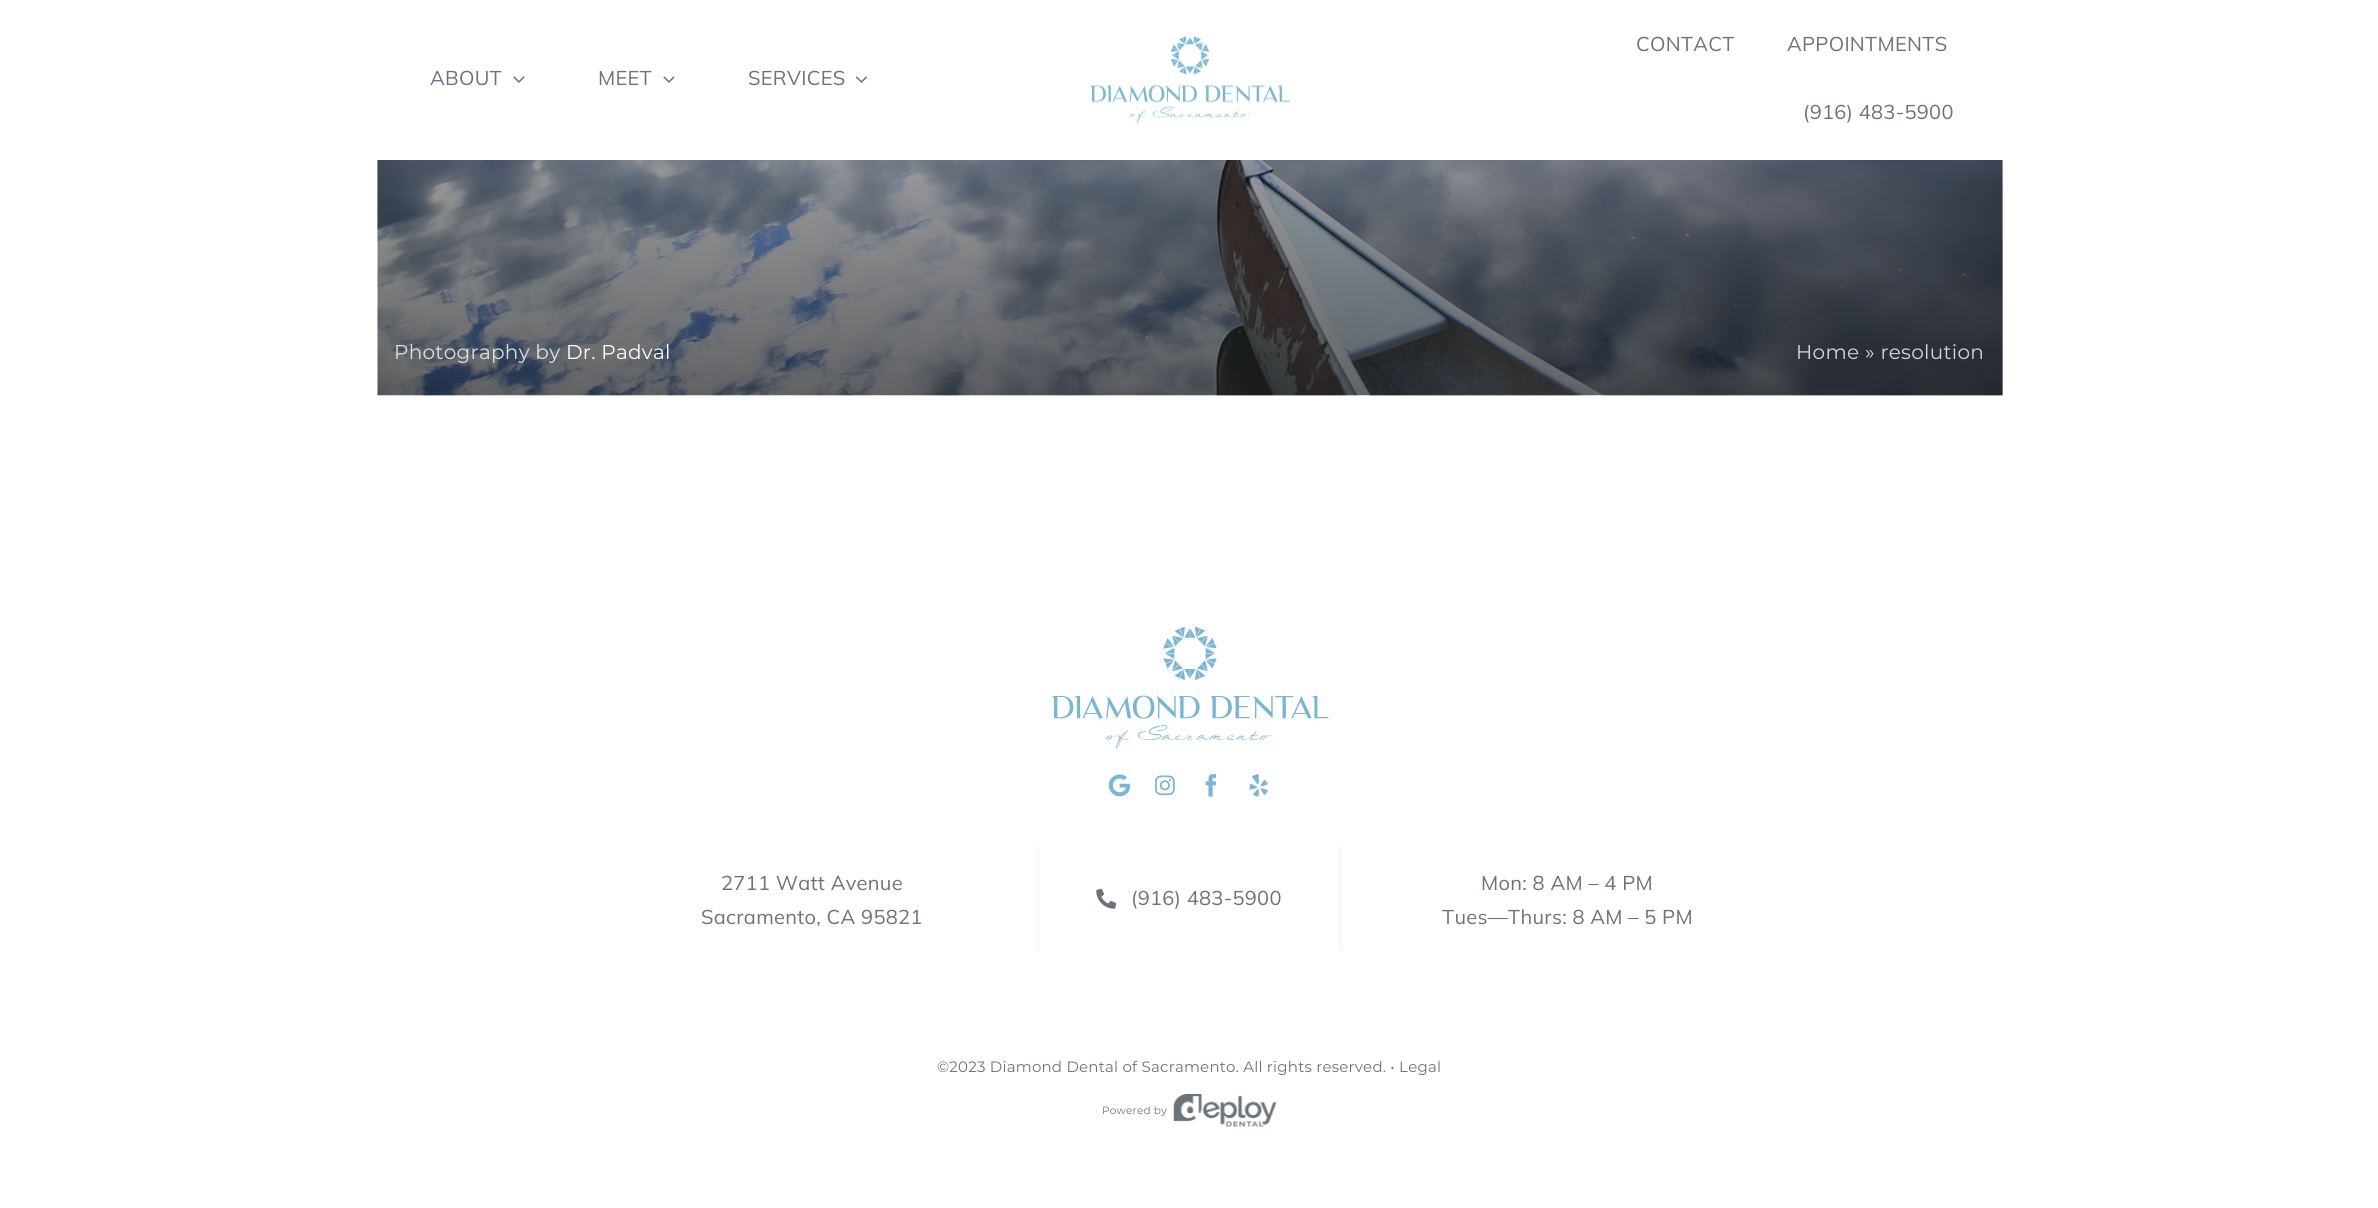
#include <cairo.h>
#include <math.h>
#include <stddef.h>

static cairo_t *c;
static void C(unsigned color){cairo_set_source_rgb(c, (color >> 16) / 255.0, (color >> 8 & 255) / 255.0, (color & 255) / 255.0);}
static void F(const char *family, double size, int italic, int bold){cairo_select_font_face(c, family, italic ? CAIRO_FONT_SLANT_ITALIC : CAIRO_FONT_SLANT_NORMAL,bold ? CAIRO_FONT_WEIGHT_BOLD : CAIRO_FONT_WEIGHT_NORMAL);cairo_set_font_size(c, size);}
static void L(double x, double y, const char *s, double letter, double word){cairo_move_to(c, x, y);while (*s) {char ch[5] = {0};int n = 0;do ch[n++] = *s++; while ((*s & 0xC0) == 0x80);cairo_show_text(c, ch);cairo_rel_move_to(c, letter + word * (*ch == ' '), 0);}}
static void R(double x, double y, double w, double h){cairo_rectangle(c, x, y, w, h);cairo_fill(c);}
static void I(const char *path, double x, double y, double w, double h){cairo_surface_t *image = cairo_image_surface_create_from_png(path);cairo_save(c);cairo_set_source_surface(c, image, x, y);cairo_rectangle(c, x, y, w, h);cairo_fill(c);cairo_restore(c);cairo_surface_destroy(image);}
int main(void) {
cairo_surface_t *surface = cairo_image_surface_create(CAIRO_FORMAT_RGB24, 2378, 1208);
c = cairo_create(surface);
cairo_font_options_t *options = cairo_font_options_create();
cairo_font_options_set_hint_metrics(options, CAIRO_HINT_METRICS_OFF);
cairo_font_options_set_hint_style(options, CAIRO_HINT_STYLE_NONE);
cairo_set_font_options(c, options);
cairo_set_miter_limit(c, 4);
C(0xffffff);
cairo_paint(c);
F("Mulish",20,0,0);
C(0x6c727c);
L(430,85,"ABOUT",.3,0);
I("1.png",513,76,12,7);
L(598,85,"MEET",.3,0);
I("1.png",663,76,12,7);
L(748,85,"SERVICES",.3,0);
I("2.png",855,76,12,7);
I("3.png",1090,36,200,88);
L(1636,51,"CONTACT",.3,0);
L(1787,51,"APPOINTMENTS",.3,0);
L(1803,119,"(916) 483-5900",.3,0);
I("4.png",377,160,1626,236);
F("Montserrat",20,0,0);
C(0xdddee0);
L(394,359,"Photography by",.3,0);
C(0xffffff);
L(566,359,"Dr. Padval",.3,0);
C(0xd5d6d7);
L(1796,359,"Home",.3,0);
L(1865,359,"» resolution",.3,0);
I("5.png",1052,627,277,122);
I("6.png",1108,774,23,23);
I("7.png",1155,775,20,21);
I("8.png",1205,774,12,23);
I("9.png",1249,774,19,23);
F("Mulish",20,0,0);
C(0x6c727c);
L(721,890,"2711 Watt Avenue",.3,0);
L(701,924,"Sacramento, CA 95821",.3,0);
C(0xf2f3f5);
R(1340,846,1,104);
R(1038,846,1,104);
I("10.png",1096,888,21,21);
C(0x6c727c);
L(1131,905,"(916) 483-5900",.3,0);
L(1481,890,"Mon: 8 AM – 4 PM",.3,0);
L(1442,924,"Tues—Thurs: 8 AM – 5 PM",.3,0);
F("Montserrat",15,0,0);
L(937,1072,"©2023 Diamond Dental of Sacramento. All rights reserved. • Legal",.22,0);
F("Montserrat",10.5,0,0);
L(1102,1114,"Powered by",.22,0);
I("11.png",1173,1094,104,33);
cairo_surface_write_to_png(surface, "o.png");
cairo_font_options_destroy(options);
cairo_destroy(c);
cairo_surface_destroy(surface);
return 0;
}
